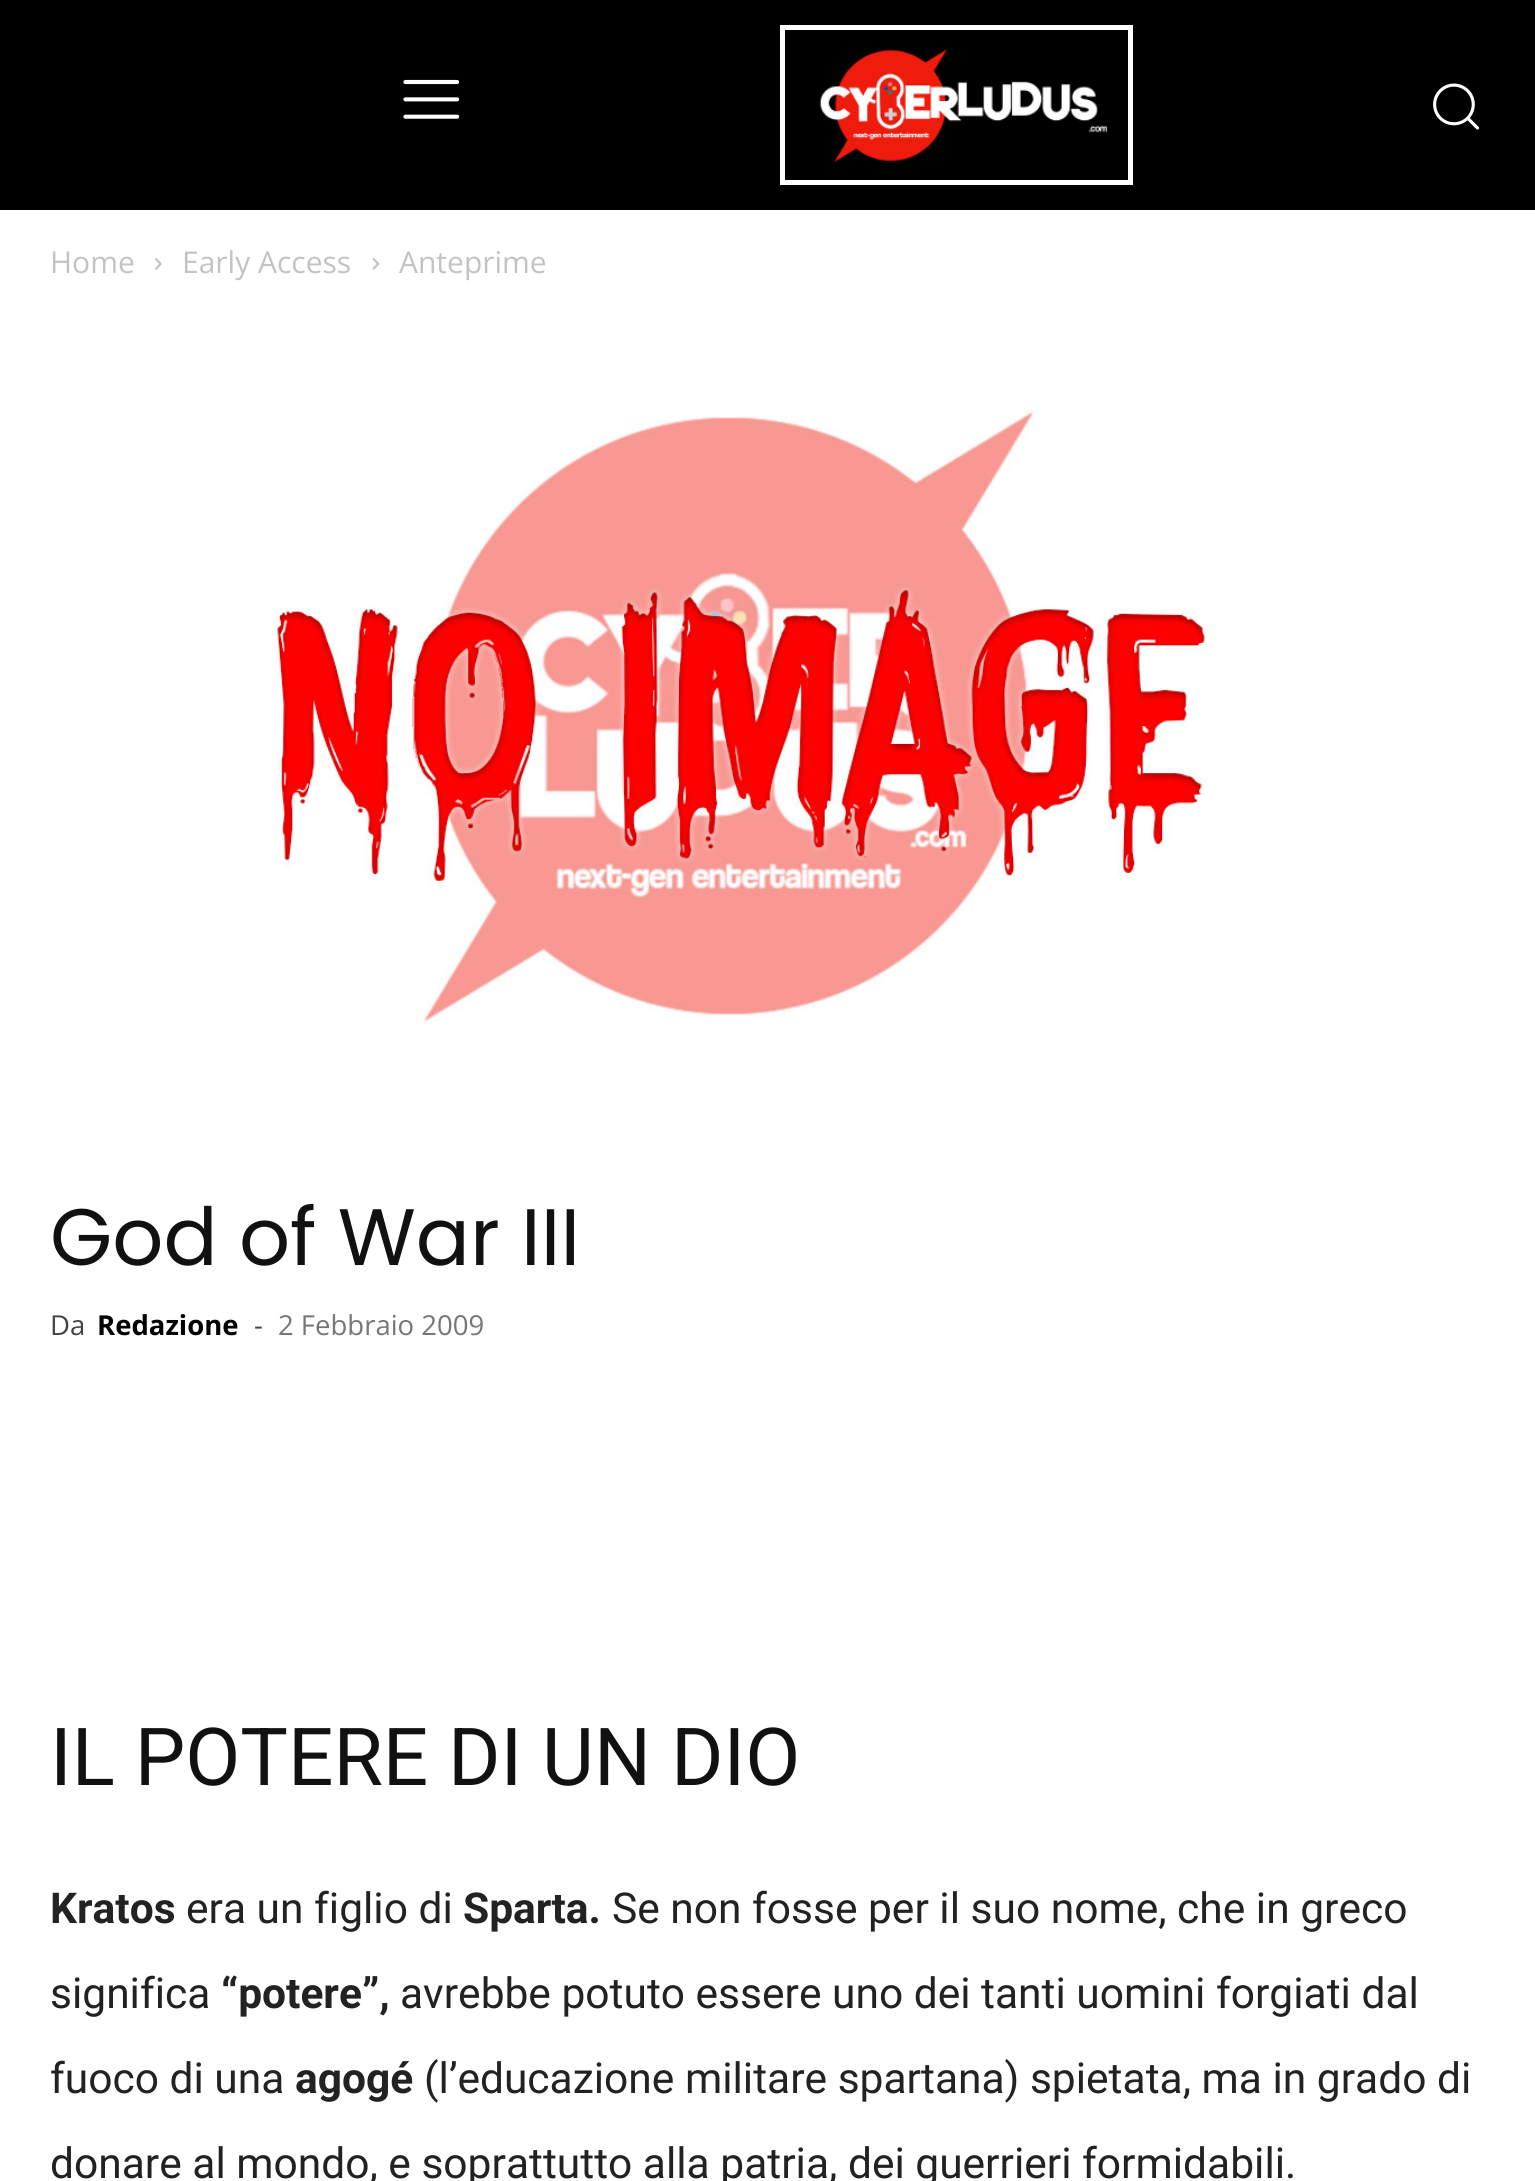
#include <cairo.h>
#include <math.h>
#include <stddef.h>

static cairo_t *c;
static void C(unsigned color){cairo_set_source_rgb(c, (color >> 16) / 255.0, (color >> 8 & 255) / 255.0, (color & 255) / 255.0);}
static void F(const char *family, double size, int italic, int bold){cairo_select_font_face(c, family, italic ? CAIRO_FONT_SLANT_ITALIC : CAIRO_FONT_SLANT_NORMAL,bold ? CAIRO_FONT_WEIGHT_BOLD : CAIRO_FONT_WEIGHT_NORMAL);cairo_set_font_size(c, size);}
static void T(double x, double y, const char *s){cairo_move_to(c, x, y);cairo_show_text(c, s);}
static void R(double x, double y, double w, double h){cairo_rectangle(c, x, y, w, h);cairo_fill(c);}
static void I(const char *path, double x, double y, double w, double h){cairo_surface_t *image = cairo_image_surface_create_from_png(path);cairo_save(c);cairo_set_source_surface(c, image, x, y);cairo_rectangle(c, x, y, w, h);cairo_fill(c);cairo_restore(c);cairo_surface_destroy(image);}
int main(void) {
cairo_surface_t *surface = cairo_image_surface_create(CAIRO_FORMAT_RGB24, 1535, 2181);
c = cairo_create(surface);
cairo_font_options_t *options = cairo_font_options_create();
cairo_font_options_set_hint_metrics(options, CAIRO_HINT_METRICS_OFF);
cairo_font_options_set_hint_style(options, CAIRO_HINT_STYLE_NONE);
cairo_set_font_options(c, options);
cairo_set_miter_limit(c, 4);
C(0x000000);
cairo_paint(c);
I("1.png",403,79,57,40);
cairo_rectangle(c,782.5,27.5,348,155);
C(0xffffff);
cairo_set_line_width(c,5);
cairo_stroke(c);
I("2.png",819,49,289,113);
I("3.png",1433,83,47,47);
R(0,210,1535,1971);
F("Open Sans",30,0,0);
C(0xc3c3c3);
T(50,273,"Home");
I("4.png",155,258,7,12);
T(182,273,"Early Access");
I("5.png",372,258,8,12);
T(399,273,"Anteprime");
I("6.png",274,410,933,616);
F("Poppins",80,0,0);
C(0x111111);
T(50,1265,"God of War III");
F("Open Sans",27.5,0,0);
C(0x444444);
T(50,1335,"Da");
F("Open Sans",27.5,0,1);
C(0x000000);
T(97,1335,"Redazione");
F("Open Sans",27.5,0,0);
C(0x444444);
T(254,1335,"-");
C(0x767676);
T(278,1335,"2 Febbraio 2009");
F("Roboto",80,0,0);
C(0x111111);
T(50,1785,"IL POTERE DI UN DIO");
F("Roboto",42.5,0,1);
C(0x222222);
T(50,1923,"Kratos");
F("Roboto",42.5,0,0);
T(186,1923,"era un figlio di");
F("Roboto",42.5,0,1);
T(463,1923,"Sparta.");
F("Roboto",42.5,0,0);
T(612,1923,"Se non fosse per il suo nome, che in greco");
T(50,2008,"significa");
F("Roboto",42.5,0,1);
T(221,2008,"“potere”,");
F("Roboto",42.5,0,0);
T(400,2008,"avrebbe potuto essere uno dei tanti uomini forgiati dal");
T(50,2093,"fuoco di una");
F("Roboto",42.5,0,1);
T(295,2093,"agogé");
F("Roboto",42.5,0,0);
T(424,2093,"(l’educazione militare spartana) spietata, ma in grado di");
T(50,2178,"donare al mondo, e soprattutto alla patria, dei guerrieri formidabili.");
cairo_surface_write_to_png(surface, "o.png");
cairo_font_options_destroy(options);
cairo_destroy(c);
cairo_surface_destroy(surface);
return 0;
}
